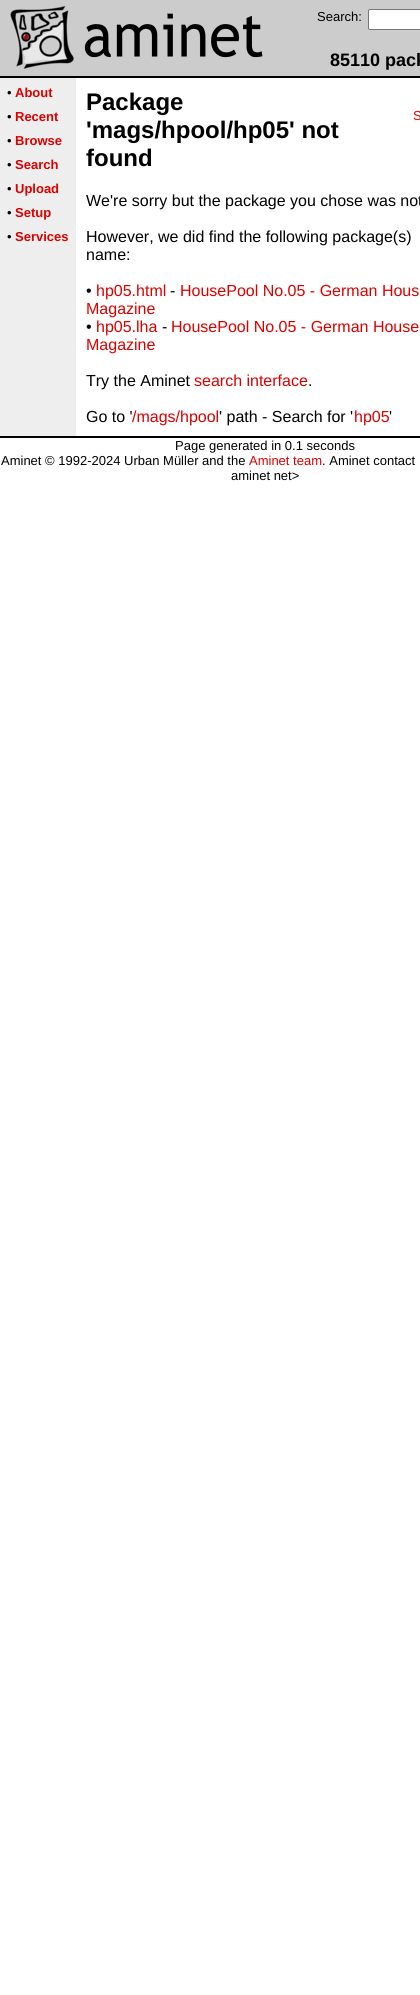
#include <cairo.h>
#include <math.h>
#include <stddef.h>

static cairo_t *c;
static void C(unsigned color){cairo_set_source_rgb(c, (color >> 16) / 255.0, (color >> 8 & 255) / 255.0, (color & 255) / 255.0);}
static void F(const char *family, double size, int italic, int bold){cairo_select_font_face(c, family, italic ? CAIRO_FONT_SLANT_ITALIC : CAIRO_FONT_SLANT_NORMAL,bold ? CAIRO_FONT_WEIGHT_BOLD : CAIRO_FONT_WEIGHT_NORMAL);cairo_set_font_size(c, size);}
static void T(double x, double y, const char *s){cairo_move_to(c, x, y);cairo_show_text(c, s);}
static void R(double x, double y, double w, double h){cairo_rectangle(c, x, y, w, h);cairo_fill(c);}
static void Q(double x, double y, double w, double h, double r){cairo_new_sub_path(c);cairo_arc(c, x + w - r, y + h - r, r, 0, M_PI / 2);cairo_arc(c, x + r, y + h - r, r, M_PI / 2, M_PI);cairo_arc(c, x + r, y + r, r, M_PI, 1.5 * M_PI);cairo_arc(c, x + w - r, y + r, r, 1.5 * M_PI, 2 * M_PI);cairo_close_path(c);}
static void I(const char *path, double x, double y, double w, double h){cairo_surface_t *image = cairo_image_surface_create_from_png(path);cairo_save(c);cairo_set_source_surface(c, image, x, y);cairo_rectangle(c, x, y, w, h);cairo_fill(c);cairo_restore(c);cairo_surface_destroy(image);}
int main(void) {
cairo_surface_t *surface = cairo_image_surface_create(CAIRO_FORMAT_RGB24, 420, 1995);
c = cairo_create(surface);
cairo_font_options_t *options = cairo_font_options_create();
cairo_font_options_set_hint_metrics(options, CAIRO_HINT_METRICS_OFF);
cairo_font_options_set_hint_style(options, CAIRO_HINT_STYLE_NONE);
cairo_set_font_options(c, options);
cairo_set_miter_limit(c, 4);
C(0xffffff);
cairo_paint(c);
C(0xcccccc);
R(0,0,420,76);
I("1.png",10,6,64,63);
I("2.png",84,13,179,45);
F("Liberation Sans",13,0,0);
C(0x000000);
T(317,21,"Search:");
C(0xffffff);
Q(368.5,9.5,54,20,1.5);
cairo_fill_preserve(c);
C(0x767676);
cairo_set_line_width(c,1);
cairo_stroke(c);
F("Liberation Sans",18,0,1);
C(0x000000);
T(330,66,"85110 pack");
R(0,76,420,2);
C(0xeeeeee);
R(0,78,76,358);
F("Liberation Sans",13,0,0);
C(0x000000);
T(7,97,"•");
F("Liberation Sans",13,0,1);
C(0xdd0000);
T(15,97,"About");
F("Liberation Sans",13,0,0);
C(0x000000);
T(7,121,"•");
F("Liberation Sans",13,0,1);
C(0xdd0000);
T(15,121,"Recent");
F("Liberation Sans",13,0,0);
C(0x000000);
T(7,145,"•");
F("Liberation Sans",13,0,1);
C(0xdd0000);
T(15,145,"Browse");
F("Liberation Sans",13,0,0);
C(0x000000);
T(7,169,"•");
F("Liberation Sans",13,0,1);
C(0xdd0000);
T(15,169,"Search");
F("Liberation Sans",13,0,0);
C(0x000000);
T(7,193,"•");
F("Liberation Sans",13,0,1);
C(0xdd0000);
T(15,193,"Upload");
F("Liberation Sans",13,0,0);
C(0x000000);
T(7,217,"•");
F("Liberation Sans",13,0,1);
C(0xdd0000);
T(15,217,"Setup");
F("Liberation Sans",13,0,0);
C(0x000000);
T(7,241,"•");
F("Liberation Sans",13,0,1);
C(0xdd0000);
T(15,241,"Services");
F("Liberation Sans",24,0,1);
C(0x000000);
T(86,110,"Package");
T(86,138,"'mags/hpool/hp05' not");
T(86,166,"found");
F("Liberation Sans",13,0,0);
C(0xdd0000);
T(413,120,"S");
F("Liberation Sans",16,0,0);
C(0x000000);
T(86,206,"We're sorry but the package you chose was not");
T(86,242,"However, we did find the following package(s)");
T(86,260,"name:");
T(86,296,"•");
C(0xdd0000);
T(96,296,"hp05.html");
C(0x000000);
T(170,296,"-");
C(0xdd0000);
T(180,296,"HousePool No.05 - German Hous");
T(86,314,"Magazine");
C(0x000000);
T(86,332,"•");
C(0xdd0000);
T(96,332,"hp05.lha");
C(0x000000);
T(162,332,"-");
C(0xdd0000);
T(171,332,"HousePool No.05 - German House");
T(86,350,"Magazine");
C(0x000000);
T(86,386,"Try the Aminet");
C(0xdd0000);
T(194,386,"search interface");
C(0x000000);
T(308,386,".");
T(86,422,"Go to '");
C(0xdd0000);
T(132,422,"/mags/hpool");
C(0x000000);
T(219,422,"' path - Search for '");
C(0xdd0000);
T(354,422,"hp05");
C(0x000000);
T(389,422,"'");
R(0,436,420,2);
F("Liberation Sans",13,0,0);
T(175,450,"Page generated in 0.1 seconds");
T(1,465,"Aminet © 1992-2024 Urban Müller and the");
C(0xdd0000);
T(249,465,"Aminet team");
C(0x000000);
T(322,465,". Aminet contact");
T(231,480,"aminet net>");
cairo_surface_write_to_png(surface, "o.png");
cairo_font_options_destroy(options);
cairo_destroy(c);
cairo_surface_destroy(surface);
return 0;
}
